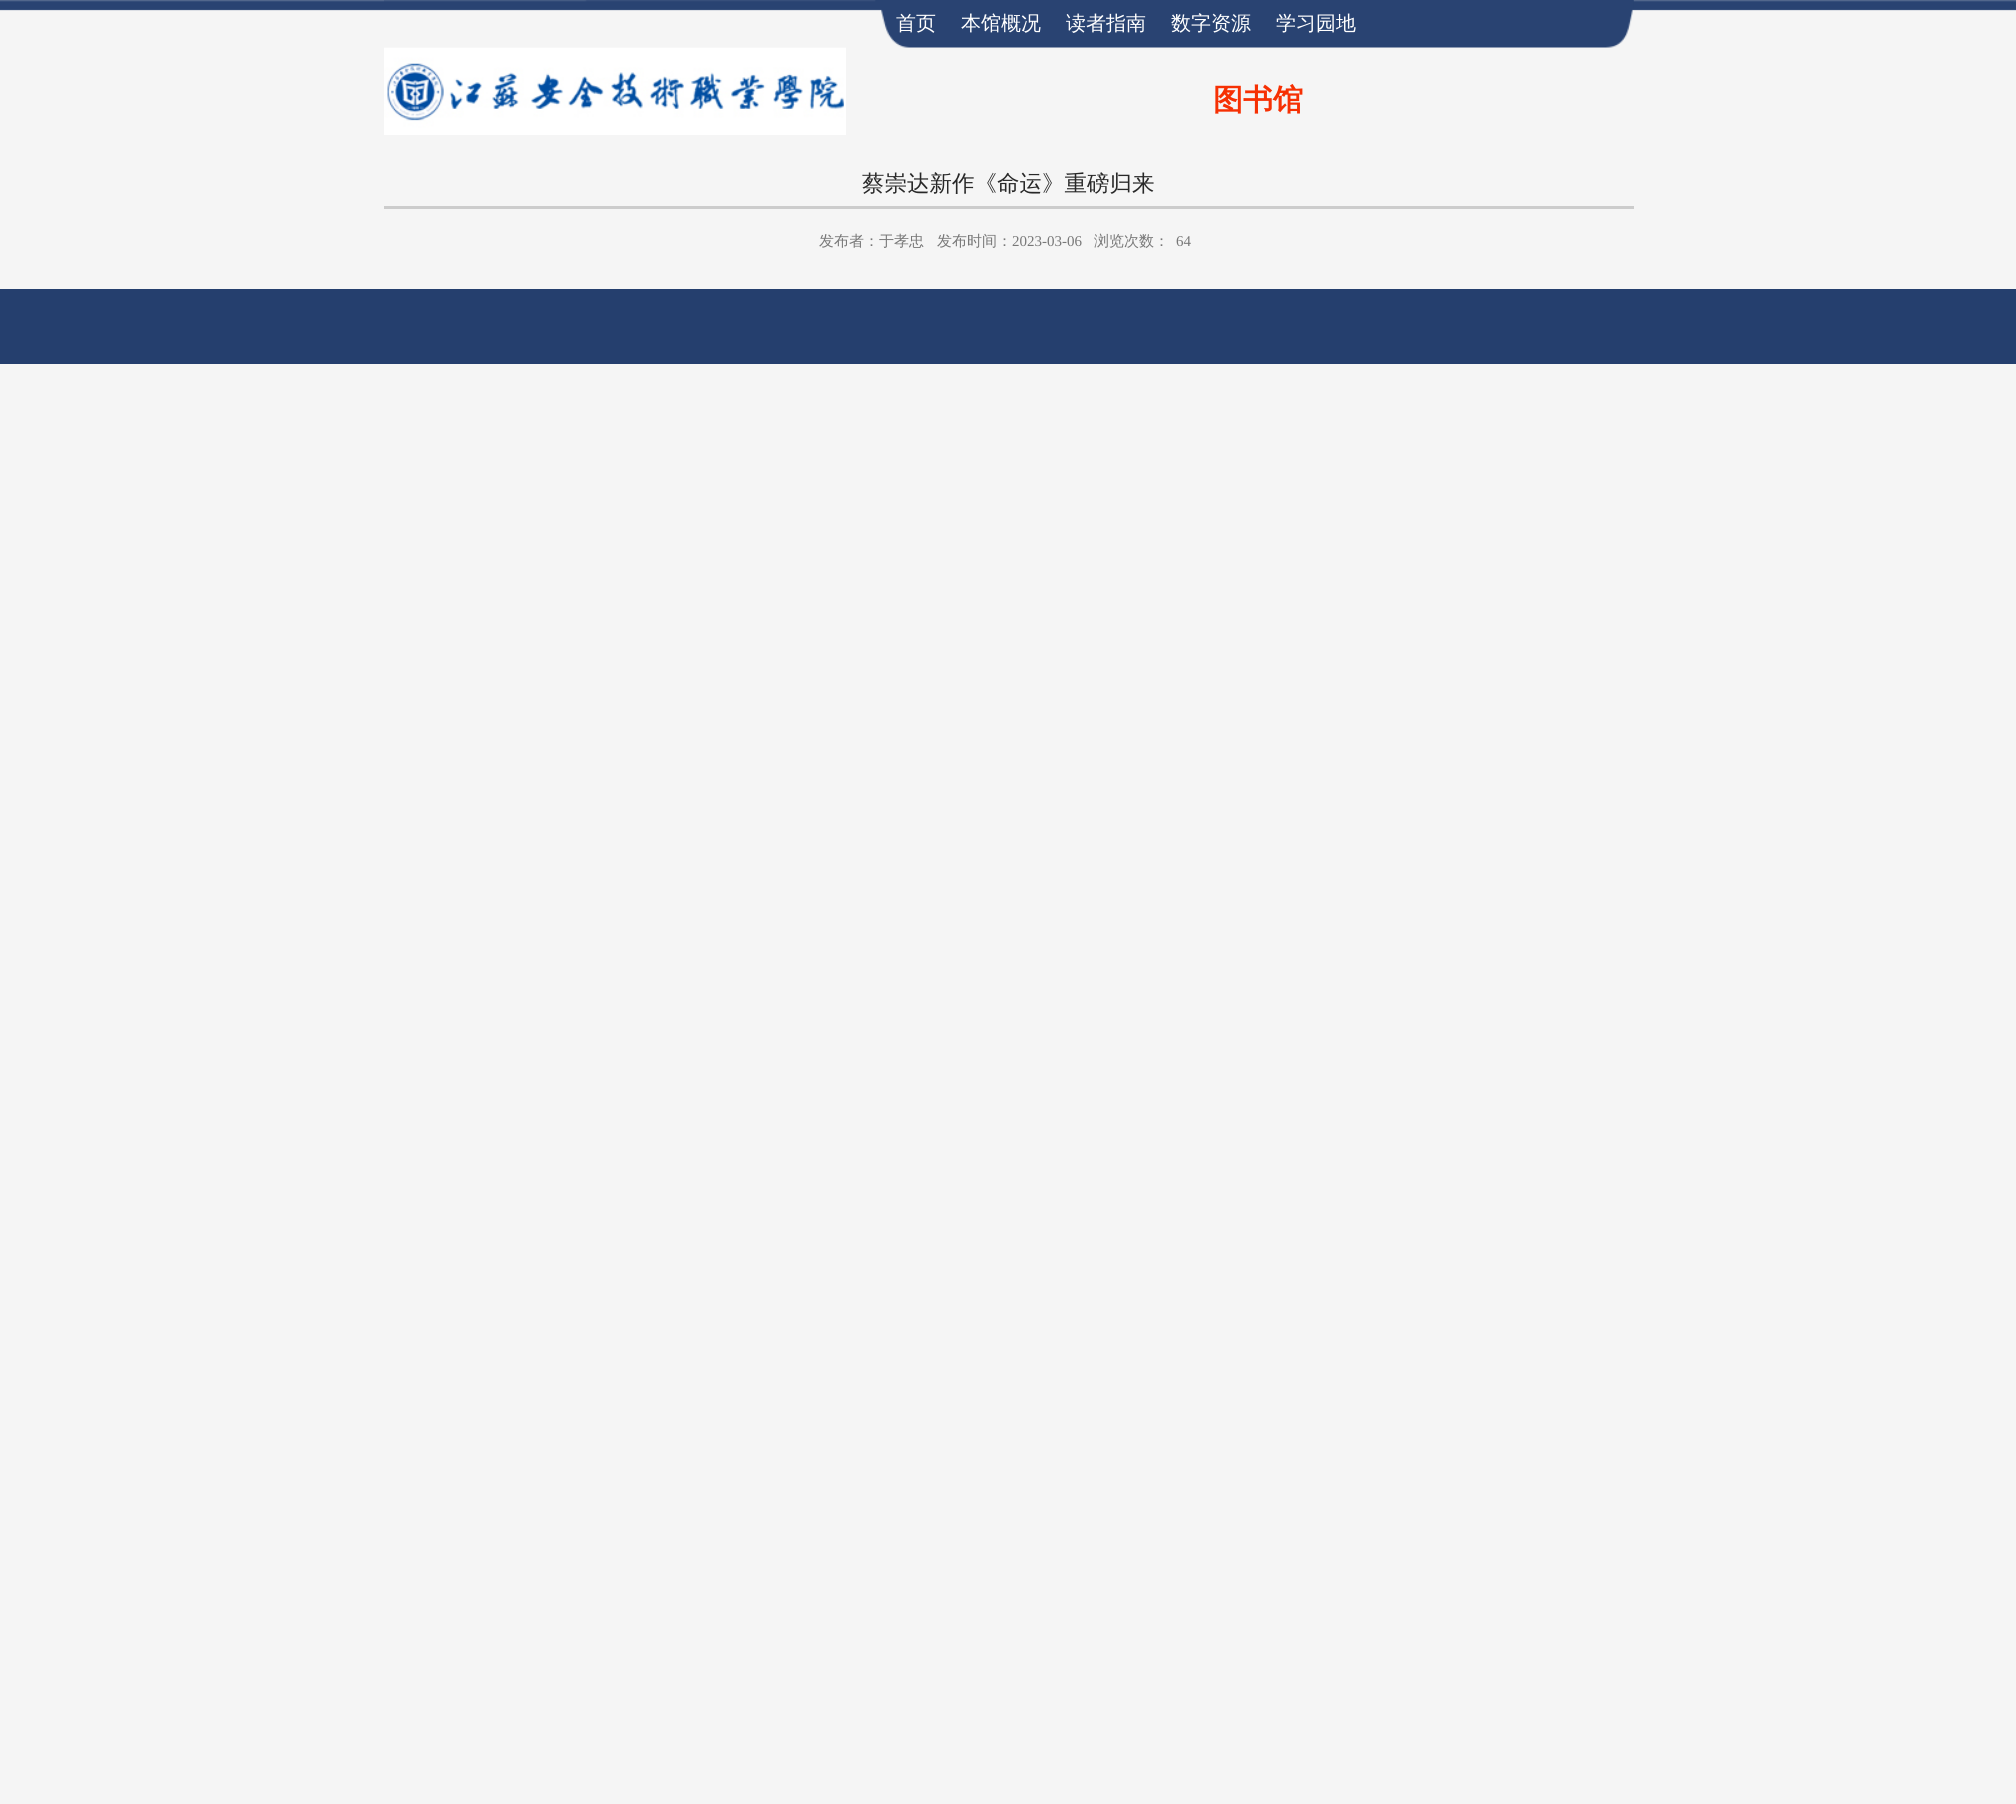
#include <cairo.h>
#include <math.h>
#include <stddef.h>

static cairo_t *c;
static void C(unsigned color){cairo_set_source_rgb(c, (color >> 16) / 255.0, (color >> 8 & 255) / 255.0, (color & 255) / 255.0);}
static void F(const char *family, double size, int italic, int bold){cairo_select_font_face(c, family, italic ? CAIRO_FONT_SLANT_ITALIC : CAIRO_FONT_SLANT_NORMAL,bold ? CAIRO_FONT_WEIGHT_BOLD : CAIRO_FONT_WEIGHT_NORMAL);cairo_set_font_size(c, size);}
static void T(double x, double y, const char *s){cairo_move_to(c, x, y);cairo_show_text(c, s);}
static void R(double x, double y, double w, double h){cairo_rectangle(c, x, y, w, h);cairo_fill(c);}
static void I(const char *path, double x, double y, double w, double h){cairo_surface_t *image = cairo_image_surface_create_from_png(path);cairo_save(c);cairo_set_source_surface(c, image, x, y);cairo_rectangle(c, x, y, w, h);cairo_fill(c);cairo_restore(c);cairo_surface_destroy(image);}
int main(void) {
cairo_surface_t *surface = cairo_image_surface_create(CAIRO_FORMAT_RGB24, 2016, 1804);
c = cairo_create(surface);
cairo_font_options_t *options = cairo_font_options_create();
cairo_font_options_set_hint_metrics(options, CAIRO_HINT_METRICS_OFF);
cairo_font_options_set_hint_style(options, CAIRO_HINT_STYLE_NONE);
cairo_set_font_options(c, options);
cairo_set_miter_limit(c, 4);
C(0xf5f5f5);
cairo_paint(c);
I("1.png",0,0,2016,11);
I("3.png",384,47,462,88);
I("2.png",384,0,1250,48);
F("WenQuanYi Zen Hei Medium",20,0,0);
C(0xffffff);
T(896,30,"首页");
T(961,30,"本馆概况");
T(1066,30,"读者指南");
T(1171,30,"数字资源");
T(1276,30,"学习园地");
F("WenQuanYi Zen Hei",30,0,1);
C(0xf63003);
T(1213,110,"图书馆");
C(0xcccccc);
R(384,206,1250,3);
F("WenQuanYi Zen Hei Medium",22.5,0,0);
C(0x282828);
T(862,191,"蔡崇达新作《命运》重磅归来");
F("WenQuanYi Zen Hei Medium",15,0,0);
C(0x787878);
T(819,246,"发布者：于孝忠");
T(937,246,"发布时间：");
F("Liberation Serif",15,0,0);
T(1012,246,"2023-03-06");
F("WenQuanYi Zen Hei Medium",15,0,0);
T(1094,246,"浏览次数：");
F("Liberation Serif",15,0,0);
T(1176,246,"64");
C(0x253f6e);
R(0,289,2016,75);
cairo_surface_write_to_png(surface, "o.png");
cairo_font_options_destroy(options);
cairo_destroy(c);
cairo_surface_destroy(surface);
return 0;
}
